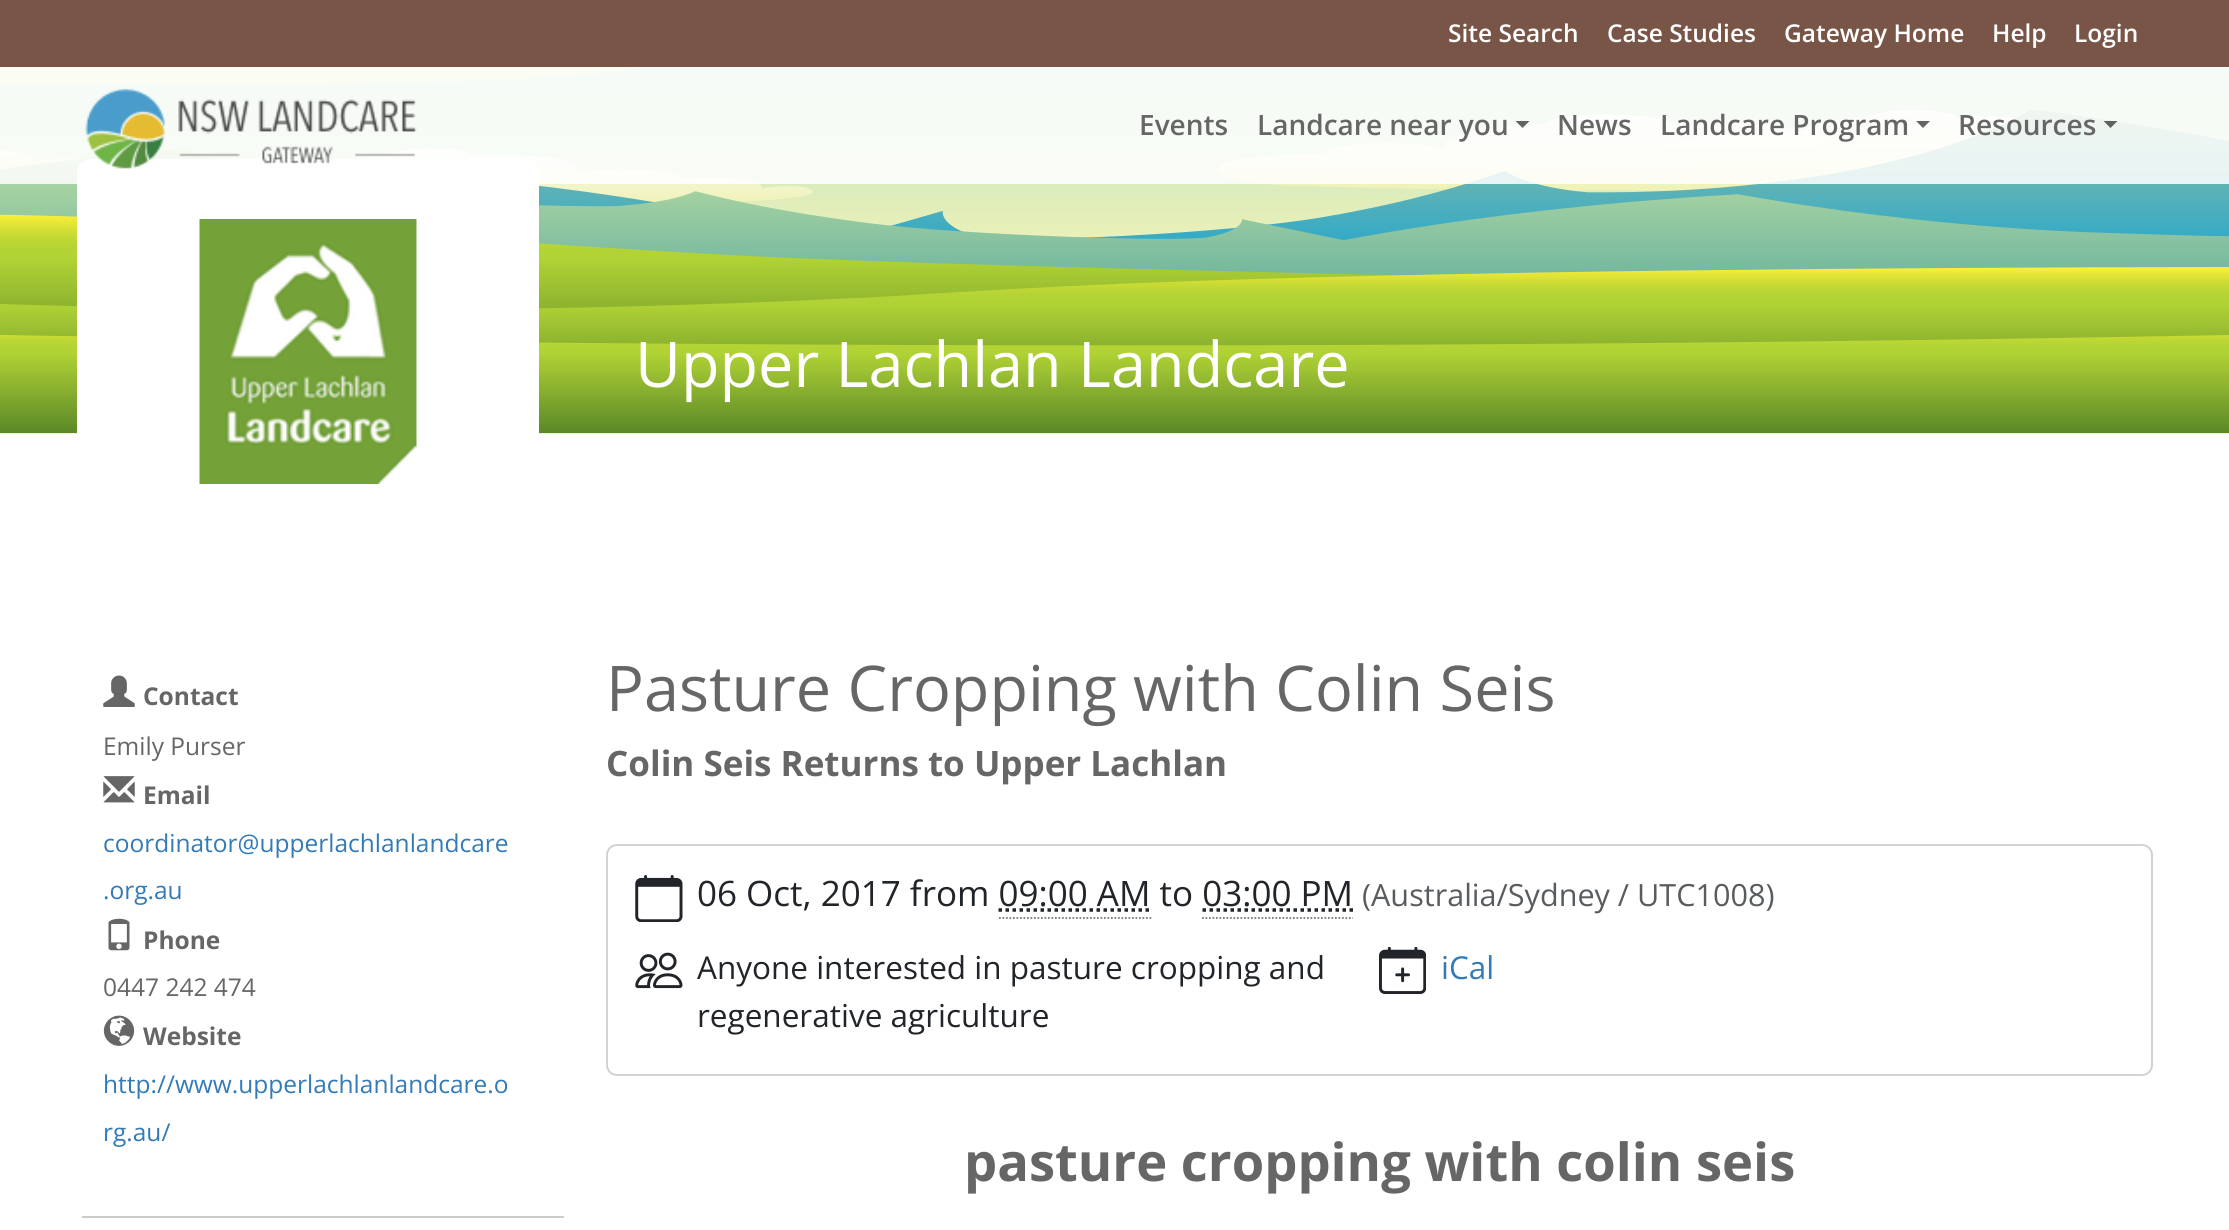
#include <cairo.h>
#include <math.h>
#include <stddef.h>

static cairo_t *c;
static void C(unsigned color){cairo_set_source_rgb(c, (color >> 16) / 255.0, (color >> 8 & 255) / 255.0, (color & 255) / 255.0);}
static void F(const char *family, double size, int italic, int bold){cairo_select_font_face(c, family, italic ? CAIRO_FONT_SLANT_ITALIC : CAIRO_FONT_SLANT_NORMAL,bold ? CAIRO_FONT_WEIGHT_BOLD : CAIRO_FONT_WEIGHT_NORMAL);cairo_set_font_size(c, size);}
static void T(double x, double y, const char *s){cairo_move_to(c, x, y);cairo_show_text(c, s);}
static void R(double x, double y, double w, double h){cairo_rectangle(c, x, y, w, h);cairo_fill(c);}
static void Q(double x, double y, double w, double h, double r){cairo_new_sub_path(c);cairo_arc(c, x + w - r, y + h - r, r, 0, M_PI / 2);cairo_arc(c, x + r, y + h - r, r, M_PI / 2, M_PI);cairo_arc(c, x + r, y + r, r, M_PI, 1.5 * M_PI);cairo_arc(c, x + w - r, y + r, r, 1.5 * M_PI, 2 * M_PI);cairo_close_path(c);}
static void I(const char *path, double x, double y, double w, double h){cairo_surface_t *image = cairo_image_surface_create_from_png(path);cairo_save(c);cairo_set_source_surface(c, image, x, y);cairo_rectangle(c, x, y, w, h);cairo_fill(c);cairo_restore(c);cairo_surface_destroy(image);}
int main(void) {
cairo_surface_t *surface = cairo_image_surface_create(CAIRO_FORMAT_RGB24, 2229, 1230);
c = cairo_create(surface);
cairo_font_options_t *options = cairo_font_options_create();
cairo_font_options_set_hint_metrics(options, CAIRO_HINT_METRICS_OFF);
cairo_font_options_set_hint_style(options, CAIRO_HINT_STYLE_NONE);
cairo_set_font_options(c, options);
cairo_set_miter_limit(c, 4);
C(0xffffff);
cairo_paint(c);
C(0x795548);
R(0,0,2229,67);
F("Open Sans SemiBold",24.5,0,0);
C(0xffffff);
T(1448,42,"Site Search");
T(1607,42,"Case Studies");
T(1784,42,"Gateway Home");
T(1992,42,"Help");
T(2074,42,"Login");
I("2.png",0,67,2229,367);
Q(77,159,462,385,14);
cairo_fill(c);
cairo_set_source_rgba(c,1,1,1,0.85);
R(0,67,2229,117);
I("1.png",85,88,332,81);
F("Open Sans SemiBold",28,0,0);
C(0x666666);
T(1139,135,"Events");
T(1257,135,"Landcare near you");
cairo_set_source_rgba(c,0,0,0,0.6);
cairo_new_path(c);
cairo_move_to(c,1515.5,121);
cairo_line_to(c,1529.5,121);
cairo_line_to(c,1522.5,128);
cairo_close_path(c);
cairo_fill(c);
C(0x666666);
T(1557,135,"News");
T(1660,135,"Landcare Program");
C(0x656664);
cairo_new_path(c);
cairo_move_to(c,1916,121);
cairo_line_to(c,1930,121);
cairo_line_to(c,1923,128);
cairo_close_path(c);
cairo_fill(c);
C(0x666666);
T(1958,135,"Resources");
cairo_set_source_rgba(c,0,0,0,0.6);
cairo_new_path(c);
cairo_move_to(c,2103.5,121);
cairo_line_to(c,2117.5,121);
cairo_line_to(c,2110.5,128);
cairo_close_path(c);
cairo_fill(c);
I("3.png",199,219,218,265);
F("Open Sans",63,0,0);
C(0xffffff);
T(635,387,"Upper Lachlan Landcare");
I("4.png",103,675,32,32);
F("Open Sans",24.5,0,1);
C(0x666666);
T(143,705,"Contact");
F("Open Sans",24.5,0,0);
T(103,755,"Emily Purser");
I("5.png",103,776,32,27);
F("Open Sans",24.5,0,1);
T(143,804,"Email");
F("Open Sans",24.5,0,0);
C(0x337ab7);
T(103,852,"coordinator@upperlachlanlandcare");
T(103,899,".org.au");
I("6.png",108,918,22,33);
F("Open Sans",24.5,0,1);
C(0x666666);
T(143,949,"Phone");
F("Open Sans",24.5,0,0);
T(103,996,"0447 242 474");
I("7.png",103,1015,32,31);
F("Open Sans",24.5,0,1);
T(143,1045,"Website");
F("Open Sans",24.5,0,0);
C(0x337ab7);
T(103,1093,"http://www.upperlachlanlandcare.o");
T(103,1141,"rg.au/");
C(0xcccccc);
R(82,1216,482,2);
F("Open Sans",63,0,0);
C(0x666666);
T(606,711,"Pasture Cropping with Colin Seis");
F("Open Sans",35,0,1);
T(606,776,"Colin Seis Returns to Upper Lachlan");
Q(607,845,1545,230,10);
C(0xd2d2d2);
cairo_stroke(c);
I("8.png",635,875,48,47);
F("Open Sans",35,0,0);
C(0x212529);
T(697,906,"06 Oct, 2017 from 09:00 AM to 03:00 PM");
cairo_new_path(c);
cairo_move_to(c,999,918);
cairo_line_to(c,1151.5,918);
C(0x777777);
cairo_set_line_width(c,1.8);
cairo_set_dash(c,(double[]){1.75,1.75},2,0);
cairo_stroke(c);
cairo_new_path(c);
cairo_move_to(c,998.5,910);
cairo_line_to(c,1150.5,910);
C(0x212529);
cairo_set_line_width(c,3.5);
cairo_set_dash(c,(double[]){3.5,3.5},2,0);
cairo_stroke(c);
cairo_new_path(c);
cairo_move_to(c,1202,918);
cairo_line_to(c,1353,918);
C(0x777777);
cairo_set_line_width(c,1.8);
cairo_set_dash(c,(double[]){1.75,1.75},2,0);
cairo_stroke(c);
cairo_new_path(c);
cairo_move_to(c,1202.5,910);
cairo_line_to(c,1353.5,910);
C(0x212529);
cairo_set_line_width(c,3.5);
cairo_set_dash(c,(double[]){3.5,3.5},2,0);
cairo_stroke(c);
F("Open Sans",30.6,0,0);
C(0x595c5f);
T(1362,906,"(Australia/Sydney / UTC1008)");
I("9.png",635,952,48,37);
F("Open Sans",31.5,0,0);
C(0x212529);
T(697,979,"Anyone interested in pasture cropping and");
T(697,1027,"regenerative agriculture");
I("10.png",1379,947,47,47);
C(0x337ab7);
T(1441,979,"iCal");
F("Open Sans",52.5,0,1);
C(0x666666);
T(964,1181,"pasture cropping with colin seis");
cairo_surface_write_to_png(surface, "o.png");
cairo_font_options_destroy(options);
cairo_destroy(c);
cairo_surface_destroy(surface);
return 0;
}
